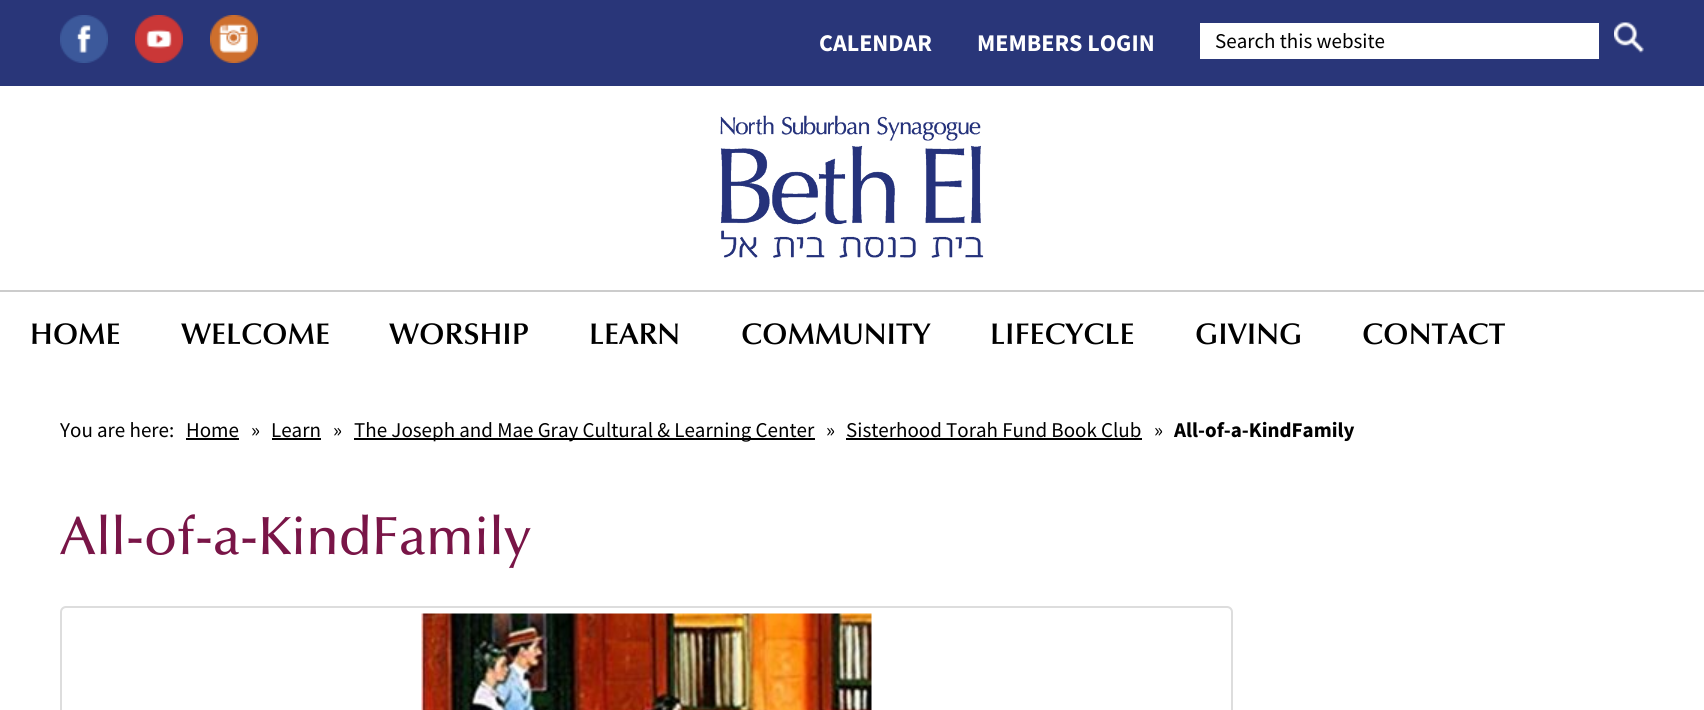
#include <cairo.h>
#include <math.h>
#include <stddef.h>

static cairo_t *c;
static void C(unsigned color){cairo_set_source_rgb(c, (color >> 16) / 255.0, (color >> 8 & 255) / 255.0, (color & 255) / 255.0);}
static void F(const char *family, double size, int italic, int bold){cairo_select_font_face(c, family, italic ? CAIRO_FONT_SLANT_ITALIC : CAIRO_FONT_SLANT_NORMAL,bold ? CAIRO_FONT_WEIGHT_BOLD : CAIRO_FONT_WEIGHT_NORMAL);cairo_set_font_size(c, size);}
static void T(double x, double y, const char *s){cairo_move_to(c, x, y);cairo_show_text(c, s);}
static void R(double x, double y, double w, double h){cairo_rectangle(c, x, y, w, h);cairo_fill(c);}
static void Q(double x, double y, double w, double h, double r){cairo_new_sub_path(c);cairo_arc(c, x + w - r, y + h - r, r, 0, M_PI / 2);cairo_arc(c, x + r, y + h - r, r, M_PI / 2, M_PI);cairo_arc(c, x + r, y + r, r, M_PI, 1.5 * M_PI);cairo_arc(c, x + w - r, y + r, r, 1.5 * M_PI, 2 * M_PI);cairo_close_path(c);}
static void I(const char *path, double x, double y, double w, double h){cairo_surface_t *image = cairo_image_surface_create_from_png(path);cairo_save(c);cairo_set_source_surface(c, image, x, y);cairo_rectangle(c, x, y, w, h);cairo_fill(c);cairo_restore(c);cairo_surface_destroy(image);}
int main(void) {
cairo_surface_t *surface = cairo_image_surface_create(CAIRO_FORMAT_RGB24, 1704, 710);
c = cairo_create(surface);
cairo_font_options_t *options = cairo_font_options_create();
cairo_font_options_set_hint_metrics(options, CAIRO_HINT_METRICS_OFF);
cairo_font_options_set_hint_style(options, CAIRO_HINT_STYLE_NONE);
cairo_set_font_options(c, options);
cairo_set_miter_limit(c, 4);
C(0x293679);
cairo_paint(c);
I("1.png",60,15,48,48);
I("2.png",135,15,48,48);
I("3.png",210,15,48,48);
F("Source Sans Pro",24,0,1);
C(0xffffff);
T(819,51,"CALENDAR");
T(977,51,"MEMBERS LOGIN");
R(1200,23,399,36);
F("Source Sans Pro",21,0,0);
C(0x000000);
T(1215,48,"Search this website");
I("4.png",1614,22,30,31);
C(0xffffff);
R(0,86,1704,204);
I("5.png",720,115,264,143);
R(0,292,1704,418);
C(0xcccccc);
R(0,290,1704,2);
F("Optima SemiBold",30,0,0);
C(0x000000);
T(30,344,"HOME");
T(181,344,"WELCOME");
T(389,344,"WORSHIP");
T(589,344,"LEARN");
T(741,344,"COMMUNITY");
T(990,344,"LIFECYCLE");
T(1195,344,"GIVING");
T(1362,344,"CONTACT");
F("Source Sans Pro",21,0,0);
T(60,437,"You are here:");
T(186,437,"Home");
R(186,438,53,2);
T(251,437,"»");
T(271,437,"Learn");
R(272,438,49,2);
T(333,437,"»");
R(354,438,461,2);
T(354,437,"The Joseph and Mae Gray Cultural & Learning Center");
T(826,437,"»");
T(846,437,"Sisterhood Torah Fund Book Club");
R(846,438,296,2);
T(1154,437,"»");
F("Source Sans Pro",21,0,1);
T(1174,437,"All-of-a-KindFamily");
F("Optima Medium",54,0,0);
C(0x791547);
T(60,554,"All-of-a-KindFamily");
Q(61,607,1171,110,5);
C(0xdddddd);
cairo_stroke(c);
I("6.png",421,613,451,97);
cairo_surface_write_to_png(surface, "o.png");
cairo_font_options_destroy(options);
cairo_destroy(c);
cairo_surface_destroy(surface);
return 0;
}
